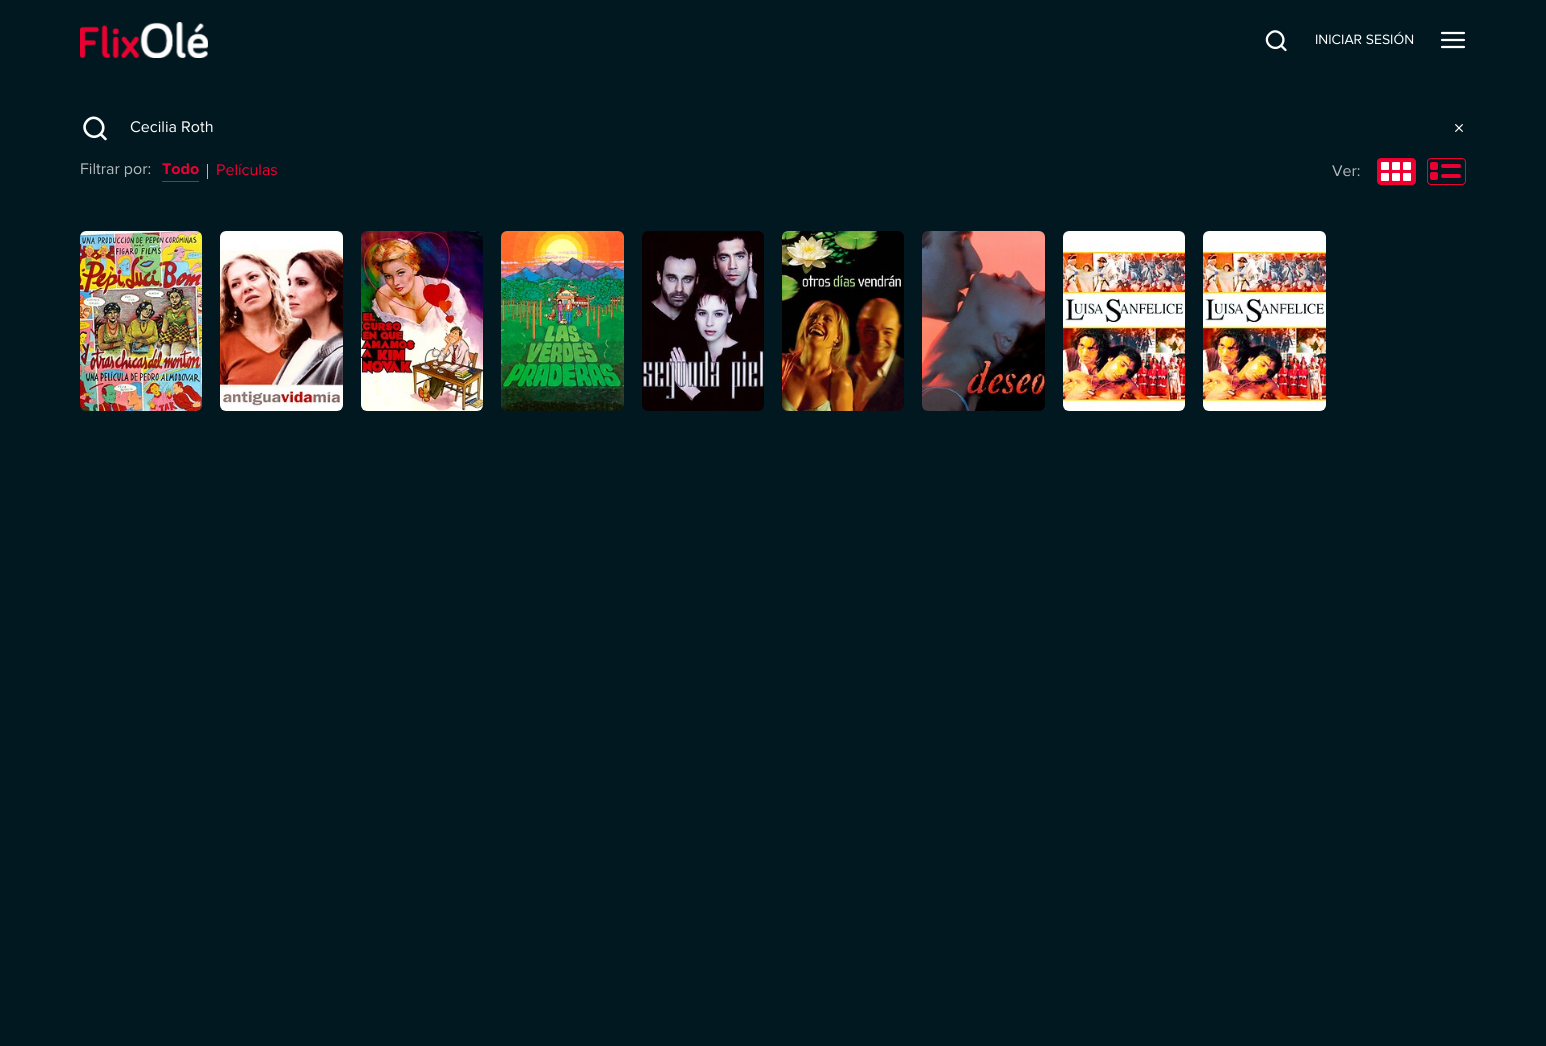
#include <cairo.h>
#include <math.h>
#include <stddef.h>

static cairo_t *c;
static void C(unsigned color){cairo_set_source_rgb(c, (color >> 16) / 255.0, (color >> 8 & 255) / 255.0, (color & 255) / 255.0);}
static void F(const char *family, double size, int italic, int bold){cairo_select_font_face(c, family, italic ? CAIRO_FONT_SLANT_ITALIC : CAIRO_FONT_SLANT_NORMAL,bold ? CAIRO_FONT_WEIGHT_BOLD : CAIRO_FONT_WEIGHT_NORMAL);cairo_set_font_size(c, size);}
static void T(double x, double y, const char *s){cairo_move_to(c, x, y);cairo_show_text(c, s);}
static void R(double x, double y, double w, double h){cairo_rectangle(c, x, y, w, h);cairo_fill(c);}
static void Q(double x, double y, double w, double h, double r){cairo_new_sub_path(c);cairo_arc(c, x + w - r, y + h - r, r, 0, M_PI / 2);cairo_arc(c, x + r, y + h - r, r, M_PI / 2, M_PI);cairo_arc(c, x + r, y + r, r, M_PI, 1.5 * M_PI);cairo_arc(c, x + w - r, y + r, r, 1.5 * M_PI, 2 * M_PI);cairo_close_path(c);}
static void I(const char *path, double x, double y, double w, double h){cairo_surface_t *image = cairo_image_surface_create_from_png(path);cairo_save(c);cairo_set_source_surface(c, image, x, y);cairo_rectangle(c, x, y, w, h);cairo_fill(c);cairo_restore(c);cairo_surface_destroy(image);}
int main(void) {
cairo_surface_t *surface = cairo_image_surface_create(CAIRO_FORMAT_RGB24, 1546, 1046);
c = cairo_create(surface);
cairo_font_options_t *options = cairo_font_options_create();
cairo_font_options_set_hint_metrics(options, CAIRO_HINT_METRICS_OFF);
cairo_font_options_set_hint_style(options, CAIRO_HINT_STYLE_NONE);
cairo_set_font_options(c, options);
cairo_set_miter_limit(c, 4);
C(0x021820);
cairo_paint(c);
I("1.png",80,22,128,36);
cairo_new_path(c);
cairo_move_to(c,1285.5,50);
cairo_line_to(c,1281,45.5);
cairo_move_to(c,1281,45.5);
cairo_curve_to(c,1288.5,38,1277,26,1269.5,34);
cairo_curve_to(c,1261.5,41.5,1273.5,53,1281,45.5);
cairo_close_path(c);
C(0xffffff);
cairo_set_line_width(c,2.3);
cairo_set_line_cap(c,CAIRO_LINE_CAP_ROUND);
cairo_set_line_join(c,CAIRO_LINE_JOIN_ROUND);
cairo_stroke(c);
F("Proxima Nova",14,0,0);
T(1315,44,"INICIAR SESIÓN");
cairo_new_path(c);
cairo_move_to(c,1442,33);
cairo_line_to(c,1464,33);
cairo_move_to(c,1442,40);
cairo_line_to(c,1464,40);
cairo_move_to(c,1442,47);
cairo_line_to(c,1464,47);
cairo_set_line_width(c,2.2);
cairo_set_line_join(c,CAIRO_LINE_JOIN_MITER);
cairo_stroke(c);
cairo_new_path(c);
cairo_move_to(c,105.5,139);
cairo_line_to(c,100.5,134);
cairo_move_to(c,100.5,134);
cairo_curve_to(c,109,125.5,96,112,87.5,120.5);
cairo_curve_to(c,78.5,129.5,92,142.5,100.5,134);
cairo_close_path(c);
cairo_set_line_width(c,2.6);
cairo_set_line_join(c,CAIRO_LINE_JOIN_ROUND);
cairo_stroke(c);
F("Proxima Nova",16,0,0);
T(130,132,"Cecilia Roth");
I("2.png",1455,124,8,8);
C(0xb3babc);
T(80,174,"Filtrar por:");
C(0xec0032);
R(162,181,37,1);
F("Proxima Nova",16,0,1);
T(162,174,"Todo");
C(0xb3babc);
R(207,164,1,15);
F("Proxima Nova",16,0,0);
C(0xec0032);
T(216,175,"Películas");
C(0xb3babc);
T(1332,176,"Ver:");
C(0xec0032);
Q(1377.5,158.5,38,26,3.5);
cairo_fill_preserve(c);
cairo_set_line_width(c,1);
cairo_set_line_cap(c,CAIRO_LINE_CAP_BUTT);
cairo_set_line_join(c,CAIRO_LINE_JOIN_MITER);
cairo_stroke(c);
C(0xffffff);
Q(1381,162,8,8,1);
cairo_fill(c);
Q(1392,162,8,8,1);
cairo_fill(c);
Q(1381,173,8,8,1);
cairo_fill(c);
Q(1392,173,8,8,1);
cairo_fill(c);
Q(1403,162,8,8,1);
cairo_fill(c);
Q(1403,173,8,8,1);
cairo_fill(c);
Q(1427.5,158.5,38,26,3.5);
C(0xec0032);
cairo_stroke(c);
Q(1430,162,8,8,2);
cairo_fill(c);
Q(1430,172,8,8,2);
cairo_fill(c);
Q(1441,164,20,4,2);
cairo_fill(c);
Q(1441,174,20,4,2);
cairo_fill(c);
I("3.png",80,231,122,180);
I("4.png",220,231,123,180);
I("5.png",361,231,122,180);
I("6.png",501,231,123,180);
I("7.png",642,231,122,180);
I("8.png",782,231,122,180);
I("9.png",922,231,123,180);
I("10.png",1063,231,122,180);
I("11.png",1203,231,123,180);
cairo_surface_write_to_png(surface, "o.png");
cairo_font_options_destroy(options);
cairo_destroy(c);
cairo_surface_destroy(surface);
return 0;
}
